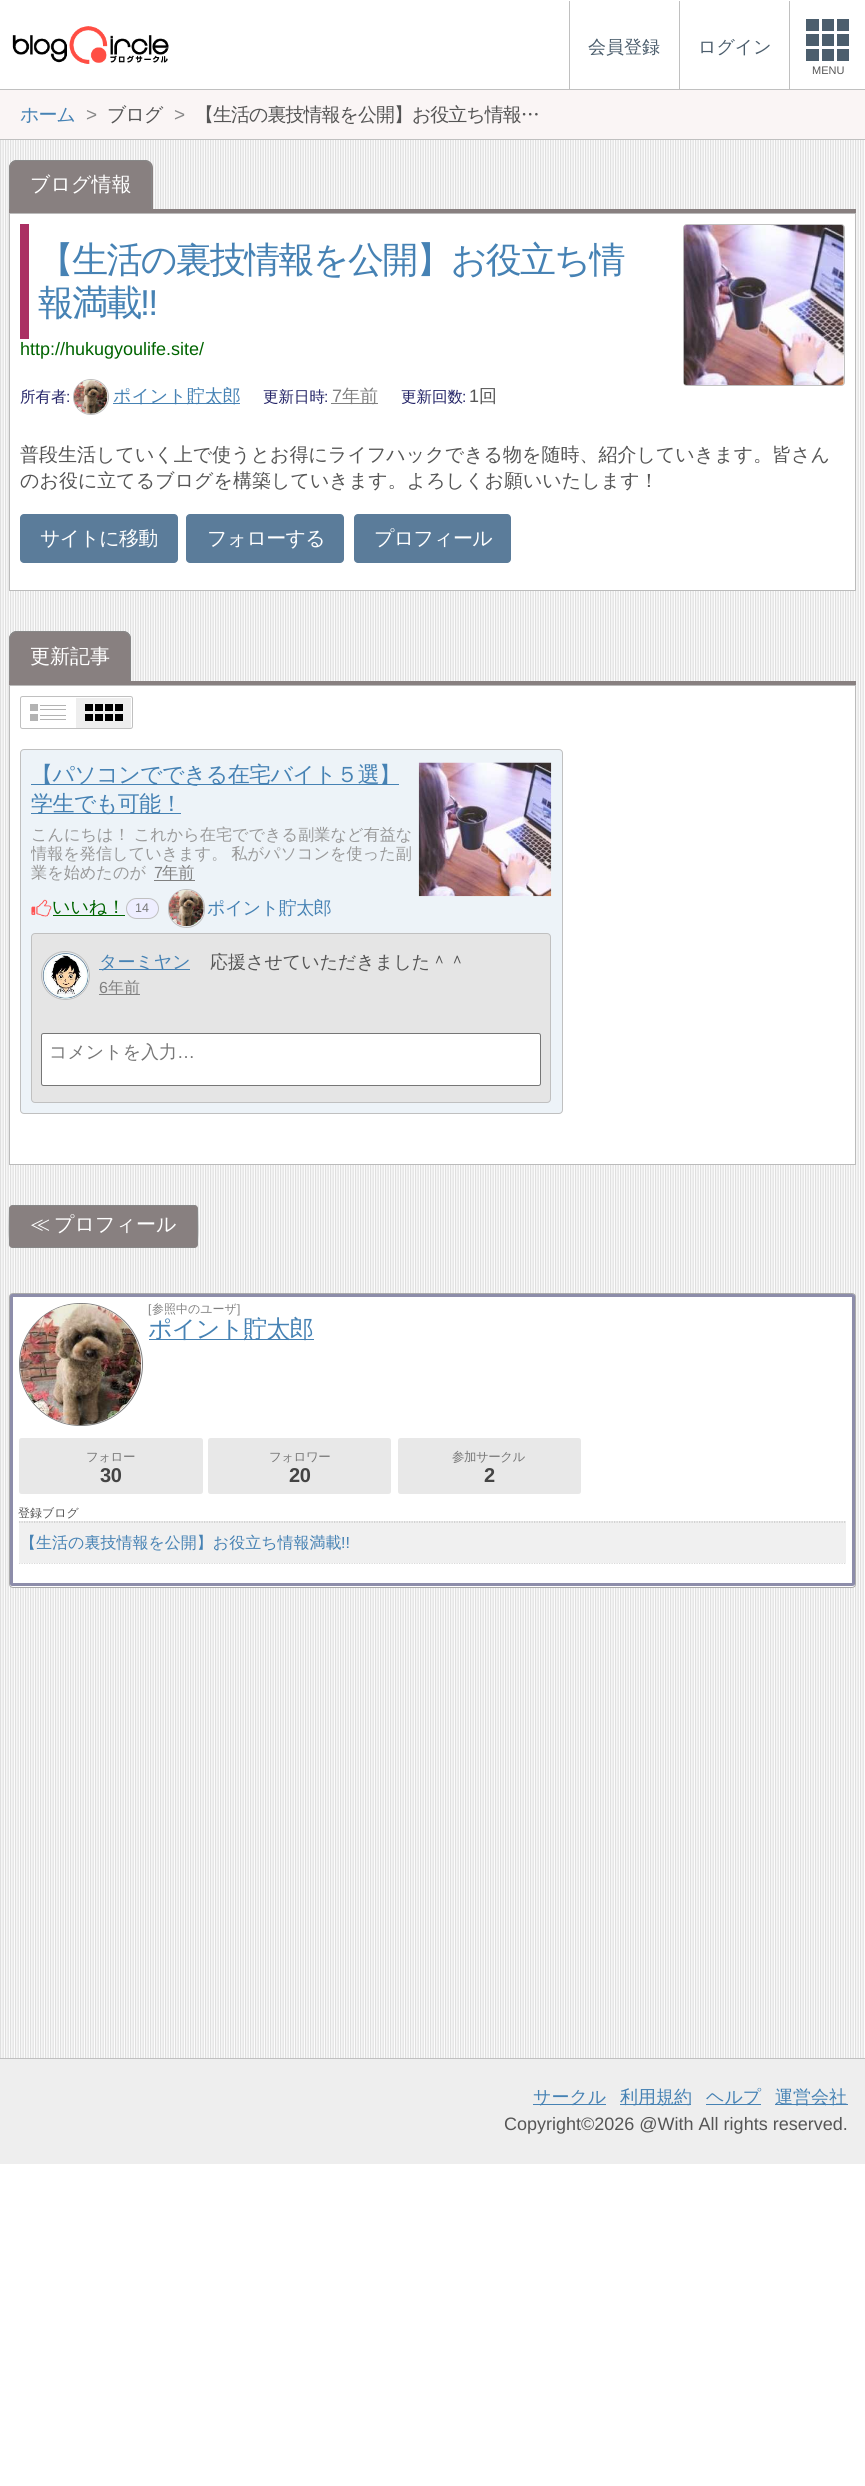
#include <cairo.h>
#include <math.h>
#include <stddef.h>

static cairo_t *c;
static void C(unsigned color){cairo_set_source_rgb(c, (color >> 16) / 255.0, (color >> 8 & 255) / 255.0, (color & 255) / 255.0);}
static void F(const char *family, double size, int italic, int bold){cairo_select_font_face(c, family, italic ? CAIRO_FONT_SLANT_ITALIC : CAIRO_FONT_SLANT_NORMAL,bold ? CAIRO_FONT_WEIGHT_BOLD : CAIRO_FONT_WEIGHT_NORMAL);cairo_set_font_size(c, size);}
static void T(double x, double y, const char *s){cairo_move_to(c, x, y);cairo_show_text(c, s);}
static void L(double x, double y, const char *s, double letter, double word){cairo_move_to(c, x, y);while (*s) {char ch[5] = {0};int n = 0;do ch[n++] = *s++; while ((*s & 0xC0) == 0x80);cairo_show_text(c, ch);cairo_rel_move_to(c, letter + word * (*ch == ' '), 0);}}
static void R(double x, double y, double w, double h){cairo_rectangle(c, x, y, w, h);cairo_fill(c);}
static void Q(double x, double y, double w, double h, double r){cairo_new_sub_path(c);cairo_arc(c, x + w - r, y + h - r, r, 0, M_PI / 2);cairo_arc(c, x + r, y + h - r, r, M_PI / 2, M_PI);cairo_arc(c, x + r, y + r, r, M_PI, 1.5 * M_PI);cairo_arc(c, x + w - r, y + r, r, 1.5 * M_PI, 2 * M_PI);cairo_close_path(c);}
static void I(const char *path, double x, double y, double w, double h){cairo_surface_t *image = cairo_image_surface_create_from_png(path);cairo_save(c);cairo_set_source_surface(c, image, x, y);cairo_rectangle(c, x, y, w, h);cairo_fill(c);cairo_restore(c);cairo_surface_destroy(image);}
int main(void) {
cairo_surface_t *surface = cairo_image_surface_create(CAIRO_FORMAT_RGB24, 865, 2486);
c = cairo_create(surface);
cairo_font_options_t *options = cairo_font_options_create();
cairo_font_options_set_hint_metrics(options, CAIRO_HINT_METRICS_OFF);
cairo_font_options_set_hint_style(options, CAIRO_HINT_STYLE_NONE);
cairo_set_font_options(c, options);
cairo_set_miter_limit(c, 4);
C(0xffffff);
cairo_paint(c);
I("1.png",0,140,865,1918);
C(0xc0c0c0);
R(0,89,865,1);
I("2.png",12,26,157,38);
R(569,1,1,88);
F("WenQuanYi Zen Hei Medium",18,0,0);
C(0x4c5e6d);
T(588,53,"会員登録");
C(0xc0c0c0);
R(679,1,1,88);
C(0x4c5e6d);
T(698,53,"ログイン");
C(0xc0c0c0);
R(789,1,1,88);
C(0x4c5e6d);
R(806,19,43,12);
C(0xffffff);
R(834,19,3,12);
R(819,19,3,12);
C(0x4c5e6d);
R(806,34,43,12);
C(0xffffff);
R(834,34,3,12);
R(819,34,3,12);
C(0x4c5e6d);
R(806,49,43,12);
C(0xffffff);
R(834,49,3,12);
R(819,49,3,12);
F("Liberation Sans",11,0,0);
C(0x555555);
T(812,74,"MENU");
C(0xfaf5f5);
R(0,90,865,49);
C(0xc0c0c0);
R(0,139,865,1);
F("WenQuanYi Zen Hei Medium",19,0,0);
C(0x4682b4);
L(20,121,"ホーム",-1,0);
F("Liberation Sans",19,0,0);
C(0x888888);
L(86,121,">",-1,0);
F("WenQuanYi Zen Hei Medium",19,0,0);
C(0x555555);
L(107,121,"ブログ",-1,0);
F("Liberation Sans",19,0,0);
C(0x888888);
L(174,121,">",-1,0);
F("WenQuanYi Zen Hei Medium",19,0,0);
C(0x555555);
L(195,121,"【生活の裏技情報を公開】お役立ち情報…",-1,0);
C(0x888080);
R(9,209,847,4);
cairo_new_path(c);
cairo_move_to(c,17,160);
cairo_line_to(c,145,160);
cairo_curve_to(c,149.5,160,153,163.5,153,168);
cairo_line_to(c,153,209);
cairo_line_to(c,9,209);
cairo_line_to(c,9,168);
cairo_curve_to(c,9,163.5,12.5,160,17,160);
cairo_close_path(c);
cairo_fill(c);
C(0x888888);
cairo_set_fill_rule(c,CAIRO_FILL_RULE_EVEN_ODD);
cairo_new_path(c);
cairo_move_to(c,17,160);
cairo_line_to(c,144,160);
cairo_curve_to(c,149,160,152,164,152,168);
cairo_line_to(c,152,209);
cairo_line_to(c,9,209);
cairo_line_to(c,9,168);
cairo_curve_to(c,9,164,12,160,17,160);
cairo_close_path(c);
cairo_move_to(c,17,161);
cairo_line_to(c,144,161);
cairo_curve_to(c,148,161,151,164,151,168);
cairo_line_to(c,151,209);
cairo_line_to(c,10,209);
cairo_line_to(c,10,168);
cairo_curve_to(c,10,164,13,161,17,161);
cairo_close_path(c);
cairo_fill(c);
F("WenQuanYi Zen Hei Medium",20,0,0);
C(0xffffff);
T(30,191,"ブログ情報");
cairo_rectangle(c,9.5,213.5,846,377);
cairo_fill_preserve(c);
C(0xbbbbbb);
cairo_set_line_width(c,1);
cairo_stroke(c);
C(0xab3063);
R(20,224,9,115);
F("WenQuanYi Zen Hei Medium",36,0,0);
C(0x4682b4);
L(38,272,"【生活の裏技情報を公開】お役立ち情",-1.75,0);
L(38,315,"報満載",-1.75,0);
F("Liberation Sans",36,0,0);
L(140,315,"!!",-1.75,0);
Q(683.5,224.5,161,161,3.5);
C(0xc0c0c0);
cairo_stroke(c);
I("3.png",683,225,161,160);
F("Liberation Sans",18,0,0);
C(0x006400);
T(20,355,"http://hukugyoulife.site/");
F("WenQuanYi Zen Hei Medium",15.5,0,0);
C(0x222266);
T(20,402,"所有者");
F("Liberation Sans",15.5,0,0);
T(66,402,":");
cairo_new_path(c);
cairo_arc(c,91,397,17.5,0,2 * M_PI);
C(0xc0c0c0);
cairo_stroke(c);
I("4.png",73,380,35,34);
C(0x4682b4);
R(113,403,127,1);
F("WenQuanYi Zen Hei Medium",18,0,0);
T(113,402,"ポイント貯太郎");
F("WenQuanYi Zen Hei Medium",15.5,0,0);
C(0x222266);
T(263,402,"更新日時");
F("Liberation Sans",15.5,0,0);
T(324,402,":");
F("Liberation Sans",18,0,0);
C(0x808080);
T(332,402,"7");
R(331,403,47,1);
F("WenQuanYi Zen Hei Medium",18,0,0);
T(342,402,"年前");
F("WenQuanYi Zen Hei Medium",15.5,0,0);
C(0x222266);
T(401,402,"更新回数");
F("Liberation Sans",15.5,0,0);
T(462,402,":");
F("Liberation Sans",18,0,0);
C(0x555555);
T(469,402,"1");
F("WenQuanYi Zen Hei Medium",18,0,0);
T(479,402,"回");
F("WenQuanYi Zen Hei Medium",19,0,0);
T(20,461,"普段生活していく上で使うとお得にライフハックできる物を随時、紹介していきます。皆さん");
T(20,487,"のお役に立てるブログを構築していきます。よろしくお願いいたします！");
C(0x5b7c9a);
Q(20,514,158,49,4);
cairo_fill(c);
F("WenQuanYi Zen Hei Medium",20,0,0);
C(0xffffff);
L(40,545,"サイトに移動",-.75,0);
C(0x5b7c9a);
Q(186,514,158,49,4);
cairo_fill(c);
C(0xffffff);
L(207,545,"フォローする",-.75,0);
C(0x5b7c9a);
Q(354,514,157,49,4);
cairo_fill(c);
C(0xffffff);
L(374,545,"プロフィール",-.75,0);
C(0x888080);
R(9,681,847,4);
cairo_new_path(c);
cairo_move_to(c,17,631);
cairo_line_to(c,123,631);
cairo_curve_to(c,127.5,631,131,634.5,131,639);
cairo_line_to(c,131,681);
cairo_line_to(c,9,681);
cairo_line_to(c,9,639);
cairo_curve_to(c,9,634.5,12.5,631,17,631);
cairo_close_path(c);
cairo_fill(c);
C(0x888888);
cairo_new_path(c);
cairo_move_to(c,17,631);
cairo_line_to(c,123,631);
cairo_curve_to(c,128,631,131,635,131,639);
cairo_line_to(c,131,681);
cairo_line_to(c,9,681);
cairo_line_to(c,9,639);
cairo_curve_to(c,9,635,12,631,17,631);
cairo_close_path(c);
cairo_move_to(c,17,632);
cairo_line_to(c,123,632);
cairo_curve_to(c,127,632,130,636,130,639);
cairo_line_to(c,130,681);
cairo_line_to(c,10,681);
cairo_line_to(c,10,639);
cairo_curve_to(c,10,636,13,632,17,632);
cairo_close_path(c);
cairo_fill(c);
C(0xffffff);
T(30,663,"更新記事");
cairo_rectangle(c,9.5,685.5,846,479);
cairo_fill_preserve(c);
C(0xbbbbbb);
cairo_stroke(c);
Q(20.5,696.5,112,32,2);
C(0xc0c0c0);
cairo_stroke(c);
C(0xb3b3b3);
R(30,704,8,7);
R(40,705,26,1);
R(40,709,26,1);
R(30,714,8,7);
R(40,715,26,1);
R(40,719,26,1);
C(0xeeeeee);
R(76,698,55,30);
C(0x000000);
R(85,704,8,7);
R(95,704,8,7);
R(105,704,8,7);
R(115,704,8,7);
R(85,714,8,7);
R(95,714,8,7);
R(105,714,8,7);
R(115,714,8,7);
C(0xedf3f8);
Q(20.5,749.5,542,364,3.5);
cairo_fill_preserve(c);
C(0xc0c0c0);
cairo_stroke(c);
C(0x4682b4);
R(31,784,368,1);
F("WenQuanYi Zen Hei Medium",22,0,0);
L(31,782,"【パソコンでできる在宅バイト５選】",-.6,0);
R(31,813,150,1);
L(31,811,"学生でも可能！",-.6,0);
F("WenQuanYi Zen Hei Medium",16.15,0,0);
C(0x999999);
L(31,840,"こんにちは！ これから在宅でできる副業など有益な",0,-1);
cairo_save(c);
cairo_set_fill_rule(c,CAIRO_FILL_RULE_WINDING);
cairo_rectangle(c,31,823,382,60);
cairo_clip(c);
L(31,859,"情報を発信していきます。 私がパソコンを使った副",0,-1);
cairo_restore(c);
T(31,878,"業を始めたのが");
F("Liberation Sans",16.15,0,0);
C(0x808080);
T(154,878,"7");
R(154,880,41,1);
F("WenQuanYi Zen Hei Medium",16.15,0,0);
T(162,878,"年前");
I("5.png",31,899,21,18);
C(0x006400);
R(53,915,72,1);
F("WenQuanYi Zen Hei Medium",18,0,0);
T(52,913,"いいね！");
C(0xeeeeff);
Q(126.5,898.5,32,20,10);
cairo_fill_preserve(c);
C(0xc0c0c0);
cairo_stroke(c);
F("Liberation Sans",12.5,0,0);
C(0x777777);
T(135,912,"14");
Q(168.5,889.5,36,38,18);
C(0xc0c0c0);
cairo_stroke(c);
I("6.png",168,890,36,37);
F("WenQuanYi Zen Hei Medium",18,0,0);
C(0x4682b4);
L(207,914,"ポイント貯太郎",-.5,0);
I("7.png",418,762,134,135);
C(0xe5e5e5);
Q(31.5,933.5,519,169,3.5);
cairo_fill_preserve(c);
C(0xc0c0c0);
cairo_stroke(c);
cairo_arc(c,65.5,975.5,24,0,2 * M_PI);
cairo_stroke(c);
I("8.png",42,952,47,47);
C(0x4682b4);
R(99,969,91,1);
T(99,968,"ターミヤン");
C(0x555555);
T(210,968,"応援させていただきました＾＾");
F("Liberation Sans",16,0,0);
C(0x808080);
T(99,993,"6");
R(99,994,41,1);
F("WenQuanYi Zen Hei Medium",16,0,0);
T(108,993,"年前");
C(0xffffff);
Q(41.5,1033.5,499,52,2);
cairo_fill_preserve(c);
C(0x767676);
cairo_stroke(c);
F("WenQuanYi Zen Hei Medium",18,0,0);
C(0x777777);
T(49,1058,"コメントを入力");
F("Liberation Sans",18,0,0);
T(177,1058,"…");
C(0x888080);
Q(9,1205,189,43,4);
cairo_fill(c);
C(0x888888);
cairo_new_path(c);
cairo_move_to(c,9,1209);
cairo_curve_to(c,9,1214,8,1244,10,1247);
cairo_line_to(c,10,1206);
cairo_close_path(c);
cairo_move_to(c,13,1205);
cairo_line_to(c,10,1206);
cairo_line_to(c,197,1206);
cairo_line_to(c,194,1205);
cairo_close_path(c);
cairo_move_to(c,198,1209);
cairo_line_to(c,197,1206);
cairo_line_to(c,197,1247);
cairo_curve_to(c,199,1244,198,1214,198,1209);
cairo_close_path(c);
cairo_move_to(c,194,1248);
cairo_line_to(c,197,1247);
cairo_line_to(c,10,1247);
cairo_line_to(c,13,1248);
cairo_close_path(c);
cairo_fill(c);
F("WenQuanYi Zen Hei Medium",20,0,0);
C(0xffffff);
T(30,1231,"≪");
T(54,1231,"プロフィール");
Q(9.5,1293.5,846,294,3.5);
cairo_fill_preserve(c);
C(0xaaaaaa);
cairo_stroke(c);
C(0x8d8daa);
cairo_new_path(c);
cairo_move_to(c,12,1294);
cairo_curve_to(c,11,1294,10,1295,10,1296);
cairo_line_to(c,10,1584);
cairo_curve_to(c,10,1585,11,1586,12,1586);
cairo_line_to(c,852,1586);
cairo_curve_to(c,854,1586,855,1585,855,1584);
cairo_line_to(c,855,1296);
cairo_curve_to(c,855,1295,854,1294,852,1294);
cairo_close_path(c);
cairo_move_to(c,13,1297);
cairo_line_to(c,13,1583);
cairo_line_to(c,852,1583);
cairo_line_to(c,852,1297);
cairo_close_path(c);
cairo_fill(c);
Q(19.5,1303.5,123,122,61);
C(0x808080);
cairo_stroke(c);
I("9.png",20,1303,122,122);
F("Liberation Sans",12,0,0);
T(148,1313,"[");
F("WenQuanYi Zen Hei Medium",12,0,0);
T(152,1313,"参照中のユーザ");
F("Liberation Sans",12,0,0);
T(237,1313,"]");
C(0x4682b4);
R(149,1339,165,1);
F("WenQuanYi Zen Hei Medium",24,0,0);
L(148,1337,"ポイント貯太郎",-.75,0);
C(0xe8e8e8);
Q(19,1438,184,56,2.5);
cairo_fill(c);
F("WenQuanYi Zen Hei Medium",12.5,0,0);
C(0x777777);
L(86,1461,"フォロー",-.5,0);
F("Liberation Sans",20,0,1);
C(0x444444);
L(100,1482,"30",-.5,0);
C(0xe8e8e8);
Q(208,1438,183,56,2.5);
cairo_fill(c);
F("WenQuanYi Zen Hei Medium",12.5,0,0);
C(0x777777);
L(269,1461,"フォロワー",-.5,0);
F("Liberation Sans",20,0,1);
C(0x444444);
L(289,1482,"20",-.5,0);
C(0xe8e8e8);
Q(398,1438,183,56,2.5);
cairo_fill(c);
F("WenQuanYi Zen Hei Medium",12.5,0,0);
C(0x777777);
L(452,1461,"参加サークル",-.5,0);
F("Liberation Sans",20,0,1);
C(0x444444);
L(484,1482,"2",-.5,0);
F("WenQuanYi Zen Hei Medium",12,0,0);
C(0x555555);
T(18,1517,"登録ブログ");
cairo_new_path(c);
cairo_move_to(c,19,1563);
cairo_line_to(c,846,1563);
C(0xc0c0c0);
cairo_set_line_width(c,1.2);
cairo_set_dash(c,(double[]){1.25,1.25},2,0);
cairo_stroke(c);
C(0xf0f0f0);
R(19,1521,827,42);
cairo_new_path(c);
cairo_move_to(c,19,1522);
cairo_line_to(c,846,1522);
C(0xc0c0c0);
cairo_stroke(c);
F("WenQuanYi Zen Hei Medium",16,0,0);
C(0x4682b4);
T(20,1548,"【生活の裏技情報を公開】お役立ち情報満載");
F("Liberation Sans",16,0,0);
T(341,1548,"!!");
C(0xeeeeee);
R(0,2059,865,105);
C(0xc0c0c0);
R(0,2058,865,1);
C(0x4682b4);
R(533,2104,73,1);
F("WenQuanYi Zen Hei Medium",18,0,0);
T(533,2103,"サークル");
R(620,2104,71,1);
T(620,2103,"利用規約");
R(706,2104,55,1);
T(706,2103,"ヘルプ");
R(775,2104,73,1);
T(775,2103,"運営会社");
F("Liberation Sans",18,0,0);
C(0x555555);
T(504,2130,"Copyright©2026 @With All rights reserved.");
cairo_surface_write_to_png(surface, "o.png");
cairo_font_options_destroy(options);
cairo_destroy(c);
cairo_surface_destroy(surface);
return 0;
}
